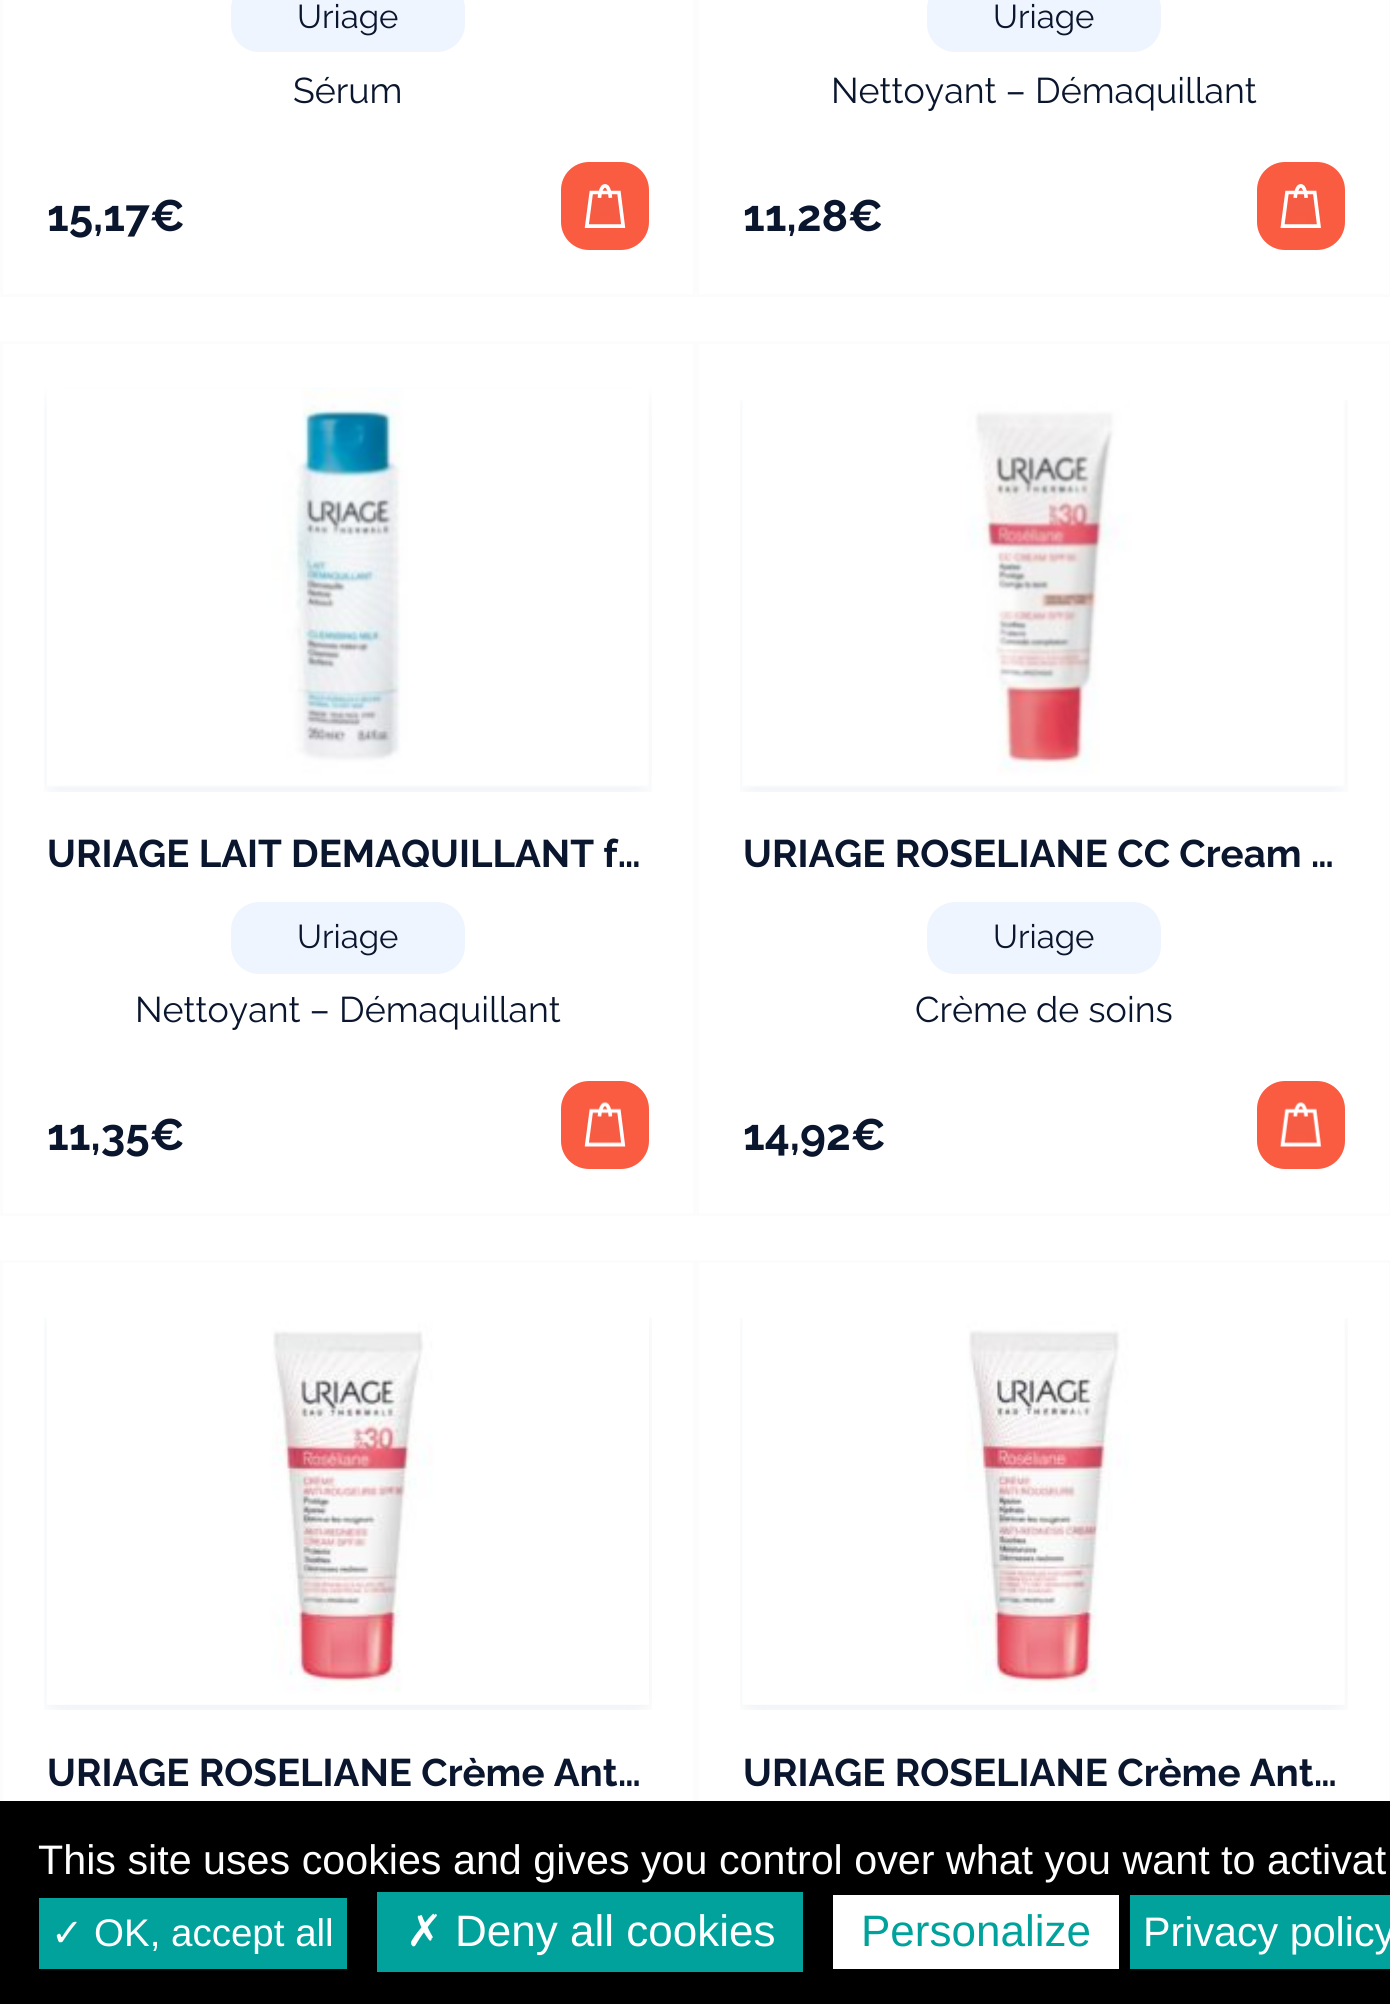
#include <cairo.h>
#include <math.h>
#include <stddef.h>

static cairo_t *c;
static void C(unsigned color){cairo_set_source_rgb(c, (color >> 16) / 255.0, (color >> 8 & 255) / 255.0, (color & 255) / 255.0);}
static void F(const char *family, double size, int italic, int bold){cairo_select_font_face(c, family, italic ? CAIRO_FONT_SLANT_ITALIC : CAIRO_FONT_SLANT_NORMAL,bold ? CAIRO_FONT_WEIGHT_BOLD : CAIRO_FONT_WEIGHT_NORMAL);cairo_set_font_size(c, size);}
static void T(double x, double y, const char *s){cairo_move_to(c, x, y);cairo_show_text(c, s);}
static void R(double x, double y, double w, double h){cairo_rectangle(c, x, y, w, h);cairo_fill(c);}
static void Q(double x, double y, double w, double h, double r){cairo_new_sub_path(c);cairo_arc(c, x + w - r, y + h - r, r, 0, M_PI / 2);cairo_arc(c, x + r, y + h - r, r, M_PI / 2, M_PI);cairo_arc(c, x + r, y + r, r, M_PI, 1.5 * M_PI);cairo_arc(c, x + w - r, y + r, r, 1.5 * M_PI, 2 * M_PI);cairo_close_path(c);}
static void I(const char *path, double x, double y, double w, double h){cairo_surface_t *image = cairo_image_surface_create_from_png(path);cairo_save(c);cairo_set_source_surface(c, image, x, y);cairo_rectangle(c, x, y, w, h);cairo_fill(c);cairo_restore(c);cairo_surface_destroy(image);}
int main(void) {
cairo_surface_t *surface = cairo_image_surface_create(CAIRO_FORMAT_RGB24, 1390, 2004);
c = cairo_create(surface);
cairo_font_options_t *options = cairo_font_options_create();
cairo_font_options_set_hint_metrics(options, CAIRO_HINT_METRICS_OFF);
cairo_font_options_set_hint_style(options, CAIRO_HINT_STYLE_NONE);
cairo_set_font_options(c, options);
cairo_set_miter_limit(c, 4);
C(0xffffff);
cairo_paint(c);
cairo_rectangle(c,1.5,-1.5,693,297);
C(0xfcfcfc);
cairo_set_line_width(c,3);
cairo_stroke(c);
C(0xeff5fe);
Q(231,-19,234,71,28);
cairo_fill(c);
F("Raleway",33,0,0);
C(0x0a162e);
T(297,28,"Uriage");
F("Raleway",35.75,0,0);
T(293,103,"Sérum");
F("Raleway",44,0,1);
T(47,231,"15,17€");
C(0xfa5c42);
Q(561,162,88,88,28);
cairo_fill(c);
I("1.png",584,184,42,44);
cairo_rectangle(c,697.5,-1.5,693,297);
C(0xfcfcfc);
cairo_stroke(c);
C(0xeff5fe);
Q(927,-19,234,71,28);
cairo_fill(c);
F("Raleway",33,0,0);
C(0x0a162e);
T(993,28,"Uriage");
F("Raleway",35.75,0,0);
T(831,103,"Nettoyant – Démaquillant");
F("Raleway",44,0,1);
T(743,231,"11,28€");
C(0xfa5c42);
Q(1257,162,88,88,28);
cairo_fill(c);
I("2.png",1280,184,41,44);
cairo_rectangle(c,1.5,342.5,693,872);
C(0xfcfcfc);
cairo_stroke(c);
I("3.png",44,387,608,405);
F("Raleway",38.5,0,1);
C(0x0a162e);
T(47,867,"URIAGE LAIT DEMAQUILLANT f…");
C(0xeff5fe);
Q(231,902,234,72,28);
cairo_fill(c);
F("Raleway",33,0,0);
C(0x0a162e);
T(297,948,"Uriage");
F("Raleway",35.75,0,0);
T(135,1022,"Nettoyant – Démaquillant");
F("Raleway",44,0,1);
T(47,1150,"11,35€");
C(0xfa5c42);
Q(561,1081,88,88,28);
cairo_fill(c);
I("4.png",584,1102,42,45);
cairo_rectangle(c,697.5,342.5,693,872);
C(0xfcfcfc);
cairo_stroke(c);
I("5.png",740,400,608,392);
F("Raleway",38.5,0,1);
C(0x0a162e);
T(743,867,"URIAGE ROSELIANE CC Cream …");
C(0xeff5fe);
Q(927,902,234,72,28);
cairo_fill(c);
F("Raleway",33,0,0);
C(0x0a162e);
T(993,948,"Uriage");
F("Raleway",35.75,0,0);
T(915,1022,"Crème de soins");
F("Raleway",44,0,1);
T(743,1150,"14,92€");
C(0xfa5c42);
Q(1257,1081,88,88,28);
cairo_fill(c);
I("6.png",1279,1102,43,45);
cairo_rectangle(c,1.5,1261.5,693,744);
C(0xfcfcfc);
cairo_stroke(c);
I("7.png",44,1317,608,393);
F("Raleway",38.5,0,1);
C(0x0a162e);
T(47,1786,"URIAGE ROSELIANE Crème Ant…");
cairo_rectangle(c,697.5,1261.5,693,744);
C(0xfcfcfc);
cairo_stroke(c);
I("8.png",740,1318,608,392);
C(0x0a162e);
T(743,1786,"URIAGE ROSELIANE Crème Ant…");
C(0x000000);
R(0,1801,1390,203);
F("Liberation Sans",41.25,0,0);
C(0xffffff);
T(38,1874,"This site uses cookies and gives you control over what you want to activat");
C(0x00a29b);
R(39,1898,308,71);
F("DejaVu Sans",38.5,0,0);
C(0xffffff);
T(51,1946,"✓");
F("Liberation Sans",38.5,0,0);
T(94,1946,"OK, accept all");
C(0x00a29b);
R(377,1892,426,80);
F("DejaVu Sans",44,0,0);
C(0xffffff);
T(406,1946,"✗");
F("Liberation Sans",44,0,0);
T(455,1946,"Deny all cookies");
R(833,1895,286,74);
C(0x00a29b);
T(861,1946,"Personalize");
R(1130,1895,260,74);
F("Liberation Sans",41.25,0,0);
C(0xffffff);
T(1143,1946,"Privacy policy");
cairo_surface_write_to_png(surface, "o.png");
cairo_font_options_destroy(options);
cairo_destroy(c);
cairo_surface_destroy(surface);
return 0;
}
